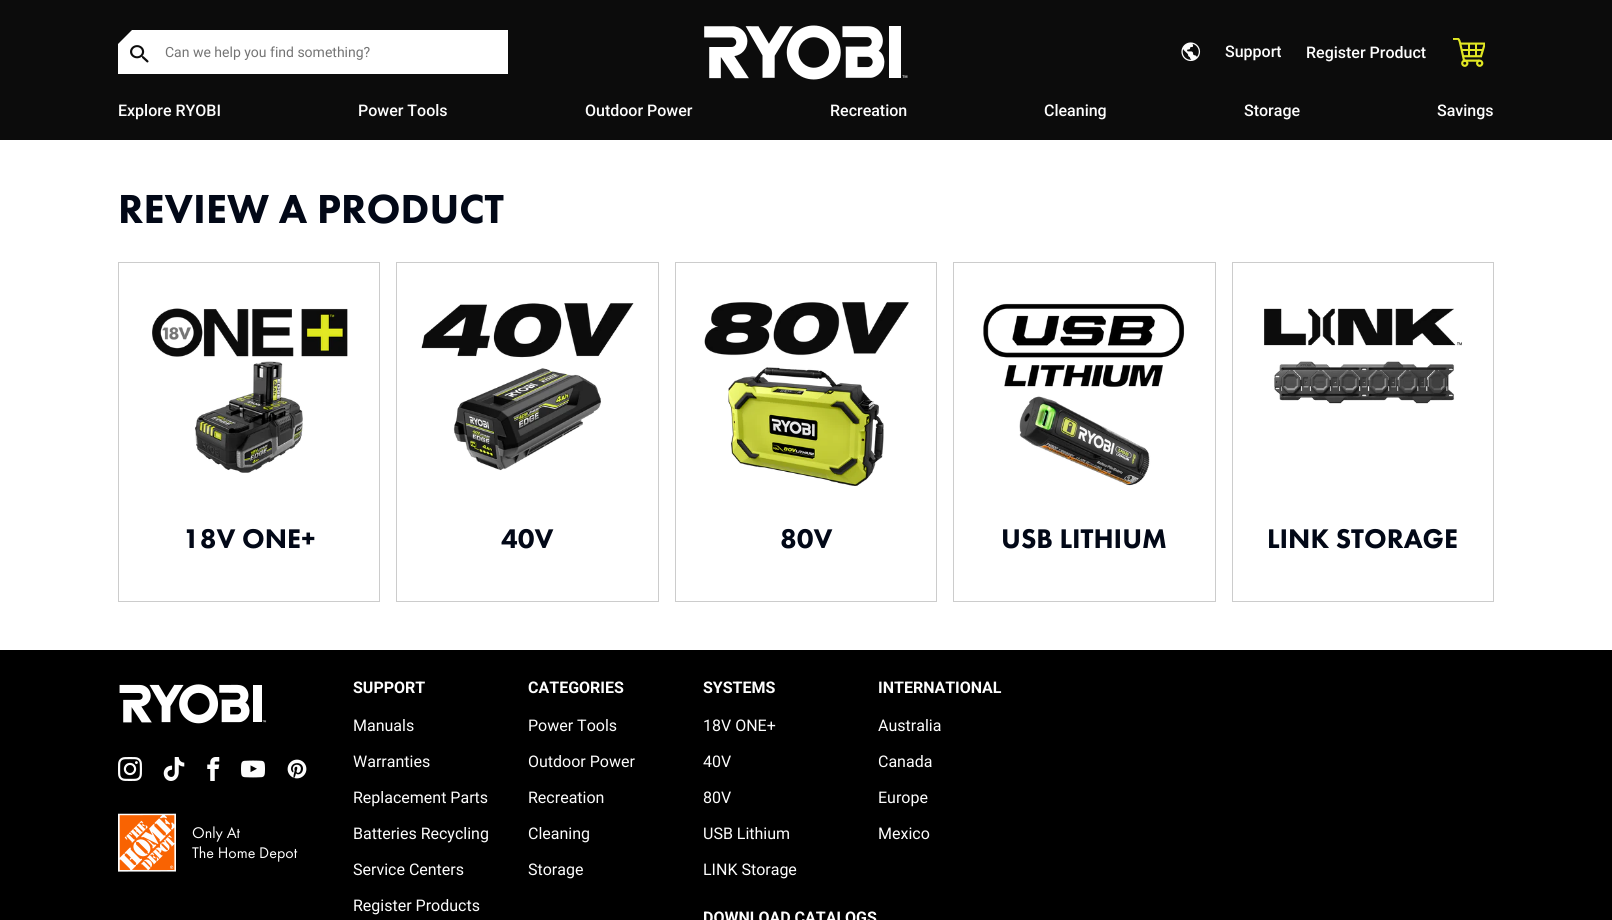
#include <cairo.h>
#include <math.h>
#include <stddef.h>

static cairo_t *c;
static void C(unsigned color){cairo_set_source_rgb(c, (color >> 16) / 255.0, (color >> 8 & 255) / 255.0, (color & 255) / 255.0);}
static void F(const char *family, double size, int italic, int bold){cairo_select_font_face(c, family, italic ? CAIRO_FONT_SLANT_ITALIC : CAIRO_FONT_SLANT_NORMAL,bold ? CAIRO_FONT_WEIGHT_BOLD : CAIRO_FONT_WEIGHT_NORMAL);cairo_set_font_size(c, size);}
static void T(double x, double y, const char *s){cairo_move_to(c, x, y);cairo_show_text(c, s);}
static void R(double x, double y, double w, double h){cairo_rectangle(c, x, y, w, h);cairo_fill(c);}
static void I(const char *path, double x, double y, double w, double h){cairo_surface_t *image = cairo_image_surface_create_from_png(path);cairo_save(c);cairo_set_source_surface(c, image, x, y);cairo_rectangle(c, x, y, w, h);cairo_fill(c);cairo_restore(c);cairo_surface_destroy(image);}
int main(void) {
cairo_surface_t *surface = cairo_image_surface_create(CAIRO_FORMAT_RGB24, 1612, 920);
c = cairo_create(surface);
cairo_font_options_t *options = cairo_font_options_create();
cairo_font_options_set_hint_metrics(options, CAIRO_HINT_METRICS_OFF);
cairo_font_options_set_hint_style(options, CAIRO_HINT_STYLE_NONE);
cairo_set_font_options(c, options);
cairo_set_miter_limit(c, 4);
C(0xffffff);
cairo_paint(c);
C(0x0c0c0c);
R(0,0,1612,140);
C(0xffffff);
R(118,30,390,44);
cairo_save(c);
cairo_rectangle(c,118,30,390,44);
cairo_clip(c);
C(0x0c0c0c);
cairo_new_path(c);
cairo_move_to(c,118,16);
cairo_line_to(c,132,30);
cairo_line_to(c,118,44);
cairo_line_to(c,104,30);
cairo_close_path(c);
cairo_fill(c);
cairo_restore(c);
I("1.png",130,45,19,18);
F("Roboto",14,0,0);
C(0x747474);
T(165,57,"Can we help you find something?");
I("2.png",704,25,204,55);
I("3.png",1181,42,20,20);
F("Roboto Medium",16,0,0);
C(0xfdfdfd);
T(1225,57,"Support");
T(1306,58,"Register Product");
I("4.png",1453,38,32,29);
T(118,116,"Explore RYOBI");
T(358,116,"Power Tools");
T(585,116,"Outdoor Power");
T(830,116,"Recreation");
T(1044,116,"Cleaning");
T(1244,116,"Storage");
T(1437,116,"Savings");
F("Futura PT Black",42,0,0);
C(0x020817);
T(118,223,"REVIEW A PRODUCT");
cairo_rectangle(c,118.5,262.5,261,339);
C(0xcccccc);
cairo_set_line_width(c,1);
cairo_stroke(c);
I("5.png",152,308,196,165);
F("Futura PT Black",28,0,0);
C(0x020817);
T(183,548,"18V ONE+");
cairo_rectangle(c,396.5,262.5,262,339);
C(0xcccccc);
cairo_stroke(c);
I("6.png",421,303,213,168);
C(0x020817);
T(501,548,"40V");
cairo_rectangle(c,675.5,262.5,261,339);
C(0xcccccc);
cairo_stroke(c);
I("7.png",704,302,205,184);
C(0x020817);
T(780,548,"80V");
cairo_rectangle(c,953.5,262.5,262,339);
C(0xcccccc);
cairo_stroke(c);
I("8.png",983,303,202,183);
C(0x020817);
T(1001,548,"USB LITHIUM");
cairo_rectangle(c,1232.5,262.5,261,339);
C(0xcccccc);
cairo_stroke(c);
I("9.png",1264,308,198,96);
C(0x020817);
T(1267,548,"LINK STORAGE");
C(0x000000);
R(0,650,1612,270);
I("10.png",119,684,148,40);
I("11.png",118,757,24,24);
I("12.png",163,757,22,24);
I("13.png",207,757,13,24);
I("14.png",241,760,24,18);
I("15.png",287,759,20,20);
F("Roboto",16,0,1);
C(0xfdfdfd);
T(353,693,"SUPPORT");
F("Roboto",16,0,0);
T(353,731,"Manuals");
T(353,767,"Warranties");
T(353,803,"Replacement Parts");
T(353,839,"Batteries Recycling");
T(353,875,"Service Centers");
T(353,911,"Register Products");
F("Roboto",16,0,1);
T(528,693,"CATEGORIES");
F("Roboto",16,0,0);
T(528,731,"Power Tools");
T(528,767,"Outdoor Power");
T(528,803,"Recreation");
T(528,839,"Cleaning");
T(528,875,"Storage");
F("Roboto",16,0,1);
T(703,693,"SYSTEMS");
F("Roboto",16,0,0);
T(703,731,"18V ONE+");
T(703,767,"40V");
T(703,803,"80V");
T(703,839,"USB Lithium");
T(703,875,"LINK Storage");
F("Roboto",16,0,1);
T(878,693,"INTERNATIONAL");
F("Roboto",16,0,0);
T(878,731,"Australia");
T(878,767,"Canada");
T(878,803,"Europe");
T(878,839,"Mexico");
F("Roboto",16,0,1);
T(703,923,"DOWNLOAD CATALOGS");
I("16.png",118,813,58,59);
F("Futura PT",16,0,0);
T(192,838,"Only At");
T(192,858,"The Home Depot");
cairo_surface_write_to_png(surface, "o.png");
cairo_font_options_destroy(options);
cairo_destroy(c);
cairo_surface_destroy(surface);
return 0;
}
